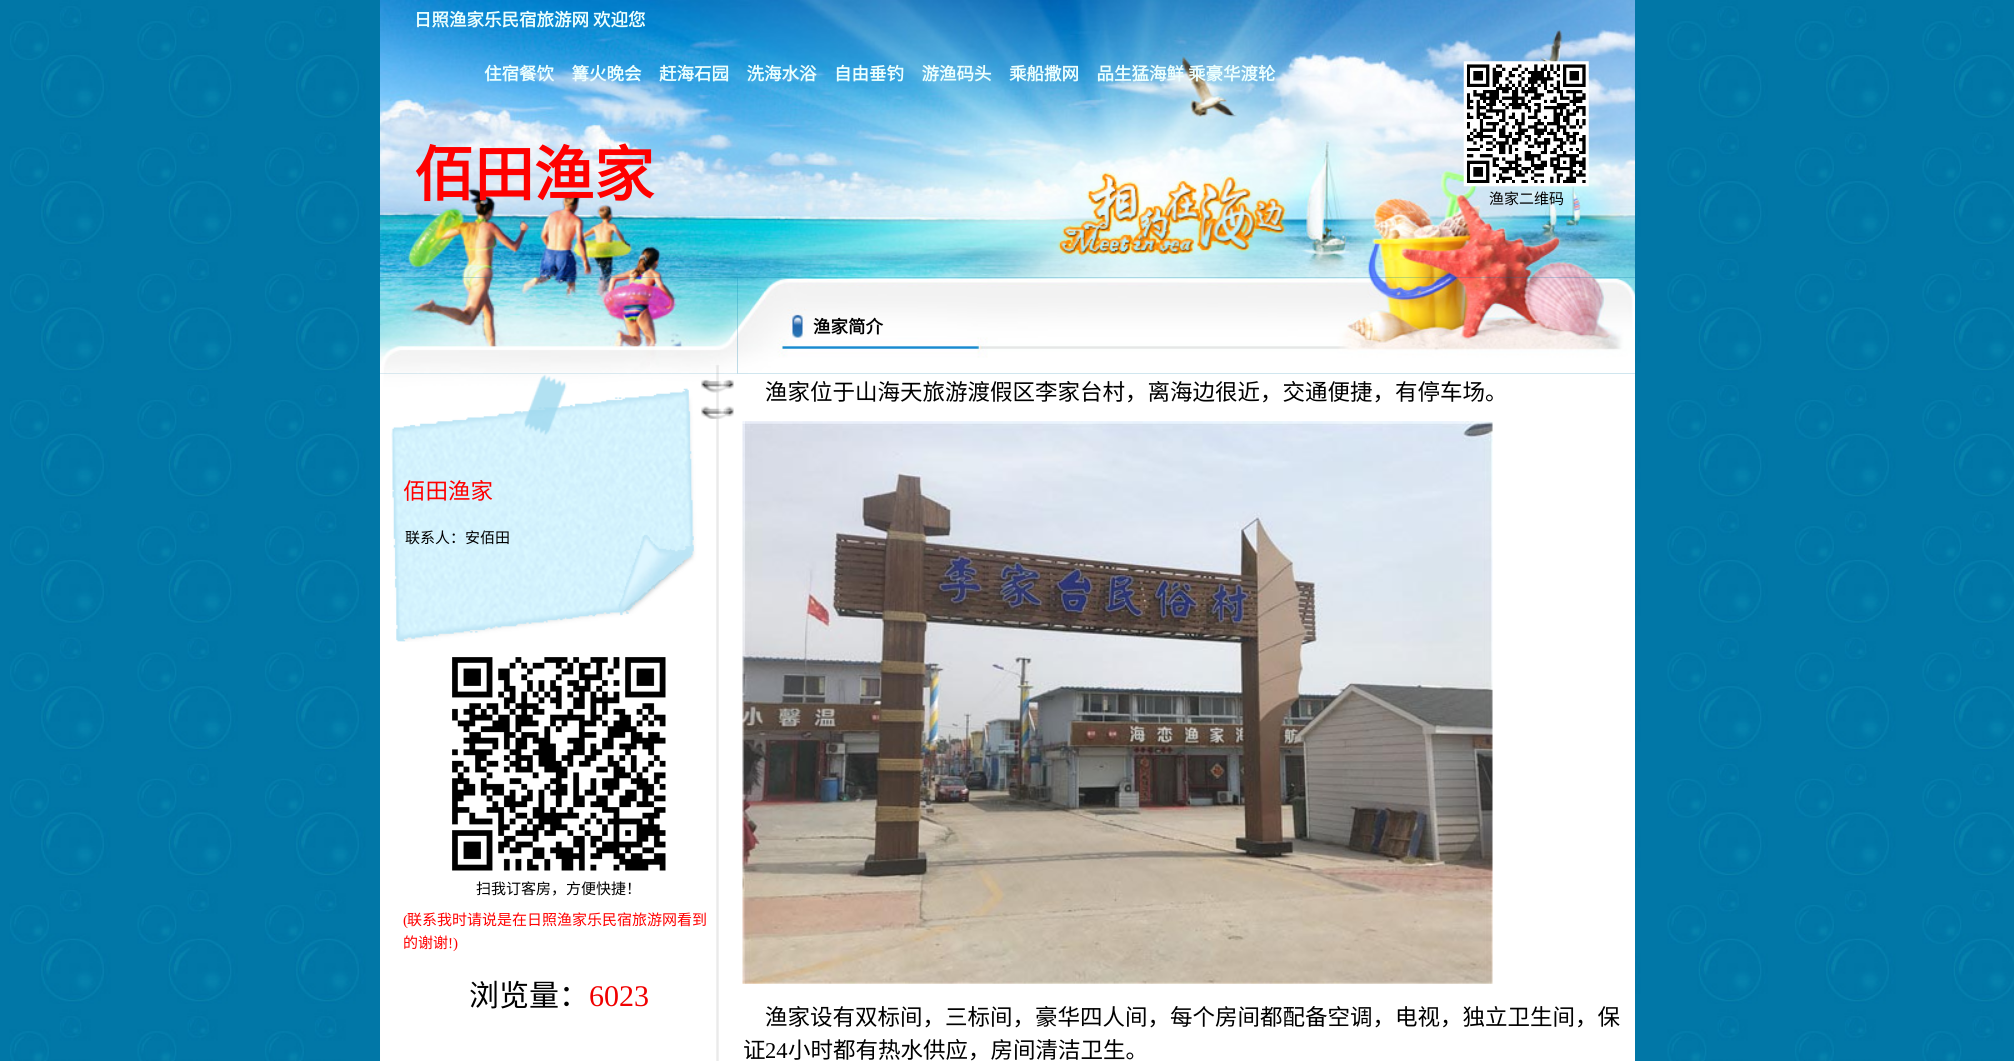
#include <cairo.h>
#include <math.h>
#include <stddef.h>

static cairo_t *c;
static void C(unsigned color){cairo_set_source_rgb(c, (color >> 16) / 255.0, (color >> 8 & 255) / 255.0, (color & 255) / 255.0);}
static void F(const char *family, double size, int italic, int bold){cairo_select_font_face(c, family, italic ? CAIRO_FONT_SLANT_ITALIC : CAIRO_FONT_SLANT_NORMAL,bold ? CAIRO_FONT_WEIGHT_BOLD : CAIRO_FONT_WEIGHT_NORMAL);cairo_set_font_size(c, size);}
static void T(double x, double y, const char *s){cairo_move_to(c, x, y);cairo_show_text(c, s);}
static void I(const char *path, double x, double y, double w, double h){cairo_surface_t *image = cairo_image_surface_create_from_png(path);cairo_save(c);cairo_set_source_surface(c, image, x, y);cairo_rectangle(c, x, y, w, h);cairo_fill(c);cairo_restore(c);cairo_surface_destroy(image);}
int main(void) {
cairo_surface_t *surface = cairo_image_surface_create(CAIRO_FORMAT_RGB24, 2014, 1061);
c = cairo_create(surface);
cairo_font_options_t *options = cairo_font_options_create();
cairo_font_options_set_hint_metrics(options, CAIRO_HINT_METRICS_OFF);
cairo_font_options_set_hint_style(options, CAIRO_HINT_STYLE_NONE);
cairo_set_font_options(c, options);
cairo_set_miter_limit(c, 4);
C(0xffffff);
cairo_paint(c);
I("1.png",0,0,2014,1061);
I("2.png",380,0,1255,278);
F("Noto Sans CJK SC",17.5,0,1);
C(0xecfffe);
T(414,26,"日照渔家乐民宿旅游网");
T(593,26,"欢迎您");
T(484,80,"住宿餐饮　篝火晚会　赶海石园　洗海水浴　自由垂钓　游渔码头　乘船撒网　品生猛海鲜 乘豪华渡轮");
I("3.png",1463,61,126,126);
F("Noto Sans CJK SC",15,0,0);
C(0x000000);
T(1489,204,"渔家二维码");
F("Noto Sans CJK SC",60,0,1);
C(0xff0000);
T(414,196,"佰田渔家");
I("5.png",737,277,898,97);
I("6.png",380,373,1255,688);
I("7.png",380,373,358,269);
I("4.png",380,277,358,97);
F("Noto Sans CJK SC",17.5,0,1);
C(0x000000);
T(813,333,"渔家简介");
F("Noto Sans CJK SC",22.5,0,0);
C(0xff0000);
T(403,499,"佰田渔家");
F("Noto Sans CJK SC",15,0,0);
C(0x000000);
T(405,543,"联系人：安佰田");
I("8.png",452,657,214,214);
T(476,894,"扫我订客房，方便快捷！");
F("Liberation Serif",15,0,0);
C(0xff0000);
T(403,925,"(");
F("Noto Sans CJK SC",15,0,0);
T(407,925,"联系我时请说是在日照渔家乐民宿旅游网看到");
T(403,948,"的谢谢");
F("Liberation Serif",15,0,0);
T(448,948,"!)");
F("Noto Sans CJK SC",30,0,0);
C(0x000000);
T(469,1006,"浏览量：");
F("Liberation Serif",30,0,0);
C(0xf00000);
T(589,1006,"6023");
F("Noto Sans CJK SC",22.5,0,0);
C(0x000000);
T(765,400,"渔家位于山海天旅游渡假区李家台村，离海边很近，交通便捷，有停车场。");
I("9.png",742,421,751,563);
T(765,1025,"渔家设有双标间，三标间，豪华四人间，每个房间都配备空调，电视，独立卫生间，保");
T(743,1058,"证");
F("Liberation Serif",22.5,0,0);
T(765,1058,"24");
F("Noto Sans CJK SC",22.5,0,0);
T(788,1058,"小时都有热水供应，房间清洁卫生。");
cairo_surface_write_to_png(surface, "o.png");
cairo_font_options_destroy(options);
cairo_destroy(c);
cairo_surface_destroy(surface);
return 0;
}
